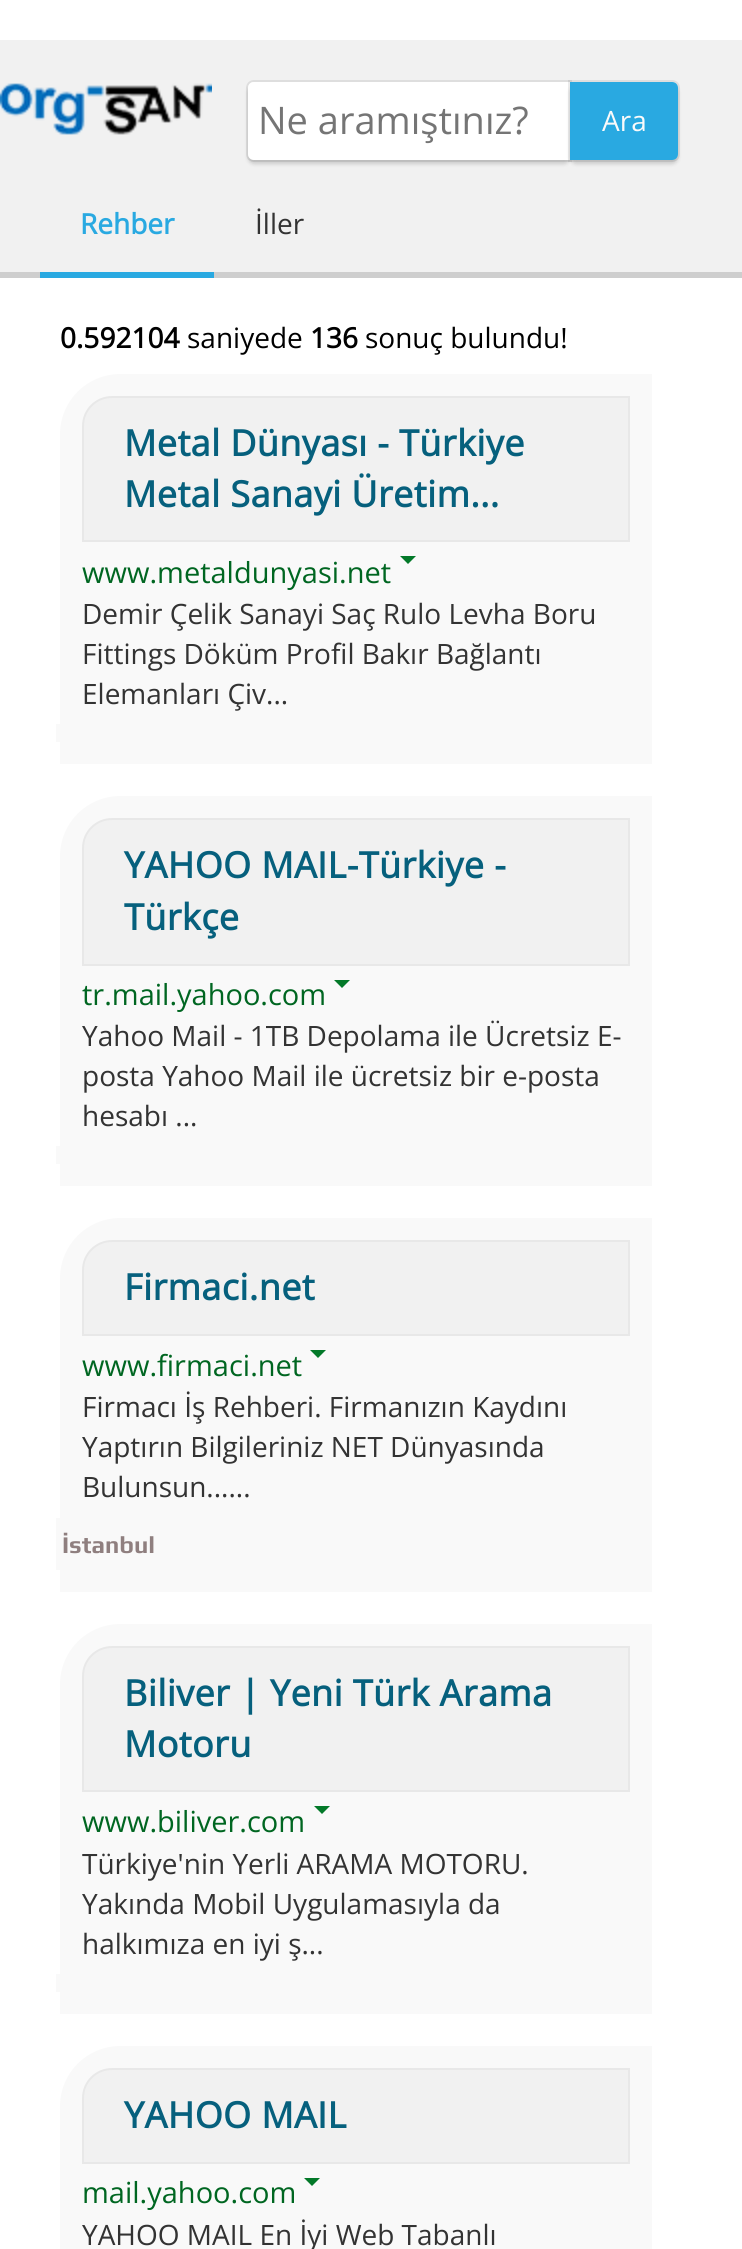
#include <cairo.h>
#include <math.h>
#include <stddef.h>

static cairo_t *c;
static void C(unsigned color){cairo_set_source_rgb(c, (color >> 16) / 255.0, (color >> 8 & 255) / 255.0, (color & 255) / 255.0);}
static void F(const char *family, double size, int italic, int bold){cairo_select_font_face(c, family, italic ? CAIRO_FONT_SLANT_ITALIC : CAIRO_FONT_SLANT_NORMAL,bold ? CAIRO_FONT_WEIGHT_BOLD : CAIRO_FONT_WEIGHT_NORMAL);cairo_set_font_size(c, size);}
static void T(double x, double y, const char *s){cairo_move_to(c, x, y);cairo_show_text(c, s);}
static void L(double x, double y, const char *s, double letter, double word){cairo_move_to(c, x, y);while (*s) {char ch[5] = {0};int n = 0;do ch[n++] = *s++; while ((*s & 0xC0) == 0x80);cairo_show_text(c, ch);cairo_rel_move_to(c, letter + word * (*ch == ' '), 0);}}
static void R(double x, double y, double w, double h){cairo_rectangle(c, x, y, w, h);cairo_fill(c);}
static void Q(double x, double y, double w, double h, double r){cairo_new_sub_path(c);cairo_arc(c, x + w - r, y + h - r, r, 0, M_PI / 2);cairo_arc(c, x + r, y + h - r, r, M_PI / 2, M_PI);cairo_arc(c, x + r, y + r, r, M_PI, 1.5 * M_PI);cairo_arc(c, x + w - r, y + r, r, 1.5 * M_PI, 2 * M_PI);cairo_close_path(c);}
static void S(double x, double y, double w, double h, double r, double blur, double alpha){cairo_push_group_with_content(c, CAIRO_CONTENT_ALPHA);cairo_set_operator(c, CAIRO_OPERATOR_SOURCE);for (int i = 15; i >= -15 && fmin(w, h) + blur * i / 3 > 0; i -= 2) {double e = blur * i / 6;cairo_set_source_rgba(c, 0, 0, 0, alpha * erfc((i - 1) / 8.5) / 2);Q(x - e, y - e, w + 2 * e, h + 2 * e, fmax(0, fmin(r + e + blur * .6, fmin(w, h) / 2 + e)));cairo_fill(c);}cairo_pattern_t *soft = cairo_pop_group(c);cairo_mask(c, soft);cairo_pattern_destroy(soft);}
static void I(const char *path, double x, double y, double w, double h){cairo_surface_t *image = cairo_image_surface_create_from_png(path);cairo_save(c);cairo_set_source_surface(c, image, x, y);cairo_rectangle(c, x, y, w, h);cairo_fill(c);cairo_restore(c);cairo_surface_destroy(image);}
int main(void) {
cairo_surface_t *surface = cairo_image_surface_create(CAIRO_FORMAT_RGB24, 742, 2249);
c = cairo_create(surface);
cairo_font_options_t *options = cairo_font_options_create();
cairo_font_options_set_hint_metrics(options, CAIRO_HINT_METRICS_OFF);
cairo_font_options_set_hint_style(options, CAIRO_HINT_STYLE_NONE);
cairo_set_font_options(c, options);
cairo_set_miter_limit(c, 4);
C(0xffffff);
cairo_paint(c);
C(0xf1f1f1);
R(0,40,742,232);
I("1.png",0,83,212,52);
cairo_new_path(c);
cairo_move_to(c,254,81);
cairo_line_to(c,571,81);
cairo_line_to(c,571,161);
cairo_line_to(c,254,161);
cairo_curve_to(c,250,161,247,158,247,154);
cairo_line_to(c,247,88);
cairo_curve_to(c,247,84,250,81,254,81);
cairo_close_path(c);
C(0xdedede);
cairo_stroke(c);
C(0x000000);
S(248,86,322,78,6,2,.16);
C(0xffffff);
cairo_new_path(c);
cairo_move_to(c,254,82);
cairo_line_to(c,570,82);
cairo_line_to(c,570,160);
cairo_line_to(c,254,160);
cairo_curve_to(c,250.5,160,248,157.5,248,154);
cairo_line_to(c,248,88);
cairo_curve_to(c,248,84.5,250.5,82,254,82);
cairo_close_path(c);
cairo_fill(c);
F("Open Sans",38,0,0);
C(0x757575);
T(258,134,"Ne aramıştınız?");
cairo_new_path(c);
cairo_move_to(c,569,81);
cairo_line_to(c,672,81);
cairo_curve_to(c,676,81,679,84,679,88);
cairo_line_to(c,679,154);
cairo_curve_to(c,679,158,676,161,672,161);
cairo_line_to(c,569,161);
cairo_close_path(c);
cairo_set_source_rgba(c,0,0,0,0.08);
cairo_stroke(c);
C(0x000000);
S(570,86,108,78,6,2,.16);
C(0x29a9e1);
cairo_new_path(c);
cairo_move_to(c,570,82);
cairo_line_to(c,672,82);
cairo_curve_to(c,675.5,82,678,84.5,678,88);
cairo_line_to(c,678,154);
cairo_curve_to(c,678,157.5,675.5,160,672,160);
cairo_line_to(c,570,160);
cairo_close_path(c);
cairo_fill(c);
F("Open Sans",28,0,0);
C(0xfafafa);
T(602,131,"Ara");
C(0xcecece);
R(0,272,742,6);
F("Open Sans",28,0,1);
C(0x29a9e1);
T(80,234,"Rehber");
R(40,272,174,6);
F("Open Sans",28,0,0);
C(0x333333);
T(255,234,"İller");
F("Open Sans",28,0,1);
C(0x000000);
T(60,348,"0.592104");
F("Open Sans",28,0,0);
T(187,348,"saniyede");
F("Open Sans",28,0,1);
T(310,348,"136");
F("Open Sans",28,0,0);
T(365,348,"sonuç bulundu!");
C(0xf9f9f9);
cairo_new_path(c);
cairo_move_to(c,120,374);
cairo_line_to(c,652,374);
cairo_line_to(c,652,764);
cairo_line_to(c,60,764);
cairo_line_to(c,60,434);
cairo_curve_to(c,60,401,87,374,120,374);
cairo_close_path(c);
cairo_fill(c);
C(0xf1f1f1);
cairo_new_path(c);
cairo_move_to(c,112,397);
cairo_line_to(c,629,397);
cairo_line_to(c,629,541);
cairo_line_to(c,83,541);
cairo_line_to(c,83,426);
cairo_curve_to(c,83,410,96,397,112,397);
cairo_close_path(c);
cairo_fill_preserve(c);
C(0xe8e8e8);
cairo_stroke(c);
F("Open Sans",36,0,1);
C(0x06607d);
L(124,456,"Metal Dünyası - Türkiye",.4,0);
L(124,507,"Metal Sanayi Üretim...",.4,0);
C(0x037929);
cairo_new_path(c);
cairo_move_to(c,400,556);
cairo_line_to(c,416,556);
cairo_line_to(c,408,564);
cairo_close_path(c);
cairo_fill(c);
F("Open Sans",29,0,0);
C(0x006621);
T(82,583,"www.metaldunyasi.net");
F("Open Sans",28,0,0);
C(0x333333);
T(82,624,"Demir Çelik Sanayi Saç Rulo Levha Boru");
T(82,664,"Fittings Döküm Profil Bakır Bağlantı");
T(82,704,"Elemanları Çiv...");
C(0xf9f9f9);
R(56,724,4,18);
cairo_new_path(c);
cairo_move_to(c,120,796);
cairo_line_to(c,652,796);
cairo_line_to(c,652,1186);
cairo_line_to(c,60,1186);
cairo_line_to(c,60,856);
cairo_curve_to(c,60,823,87,796,120,796);
cairo_close_path(c);
cairo_fill(c);
C(0xf1f1f1);
cairo_new_path(c);
cairo_move_to(c,112,819);
cairo_line_to(c,629,819);
cairo_line_to(c,629,965);
cairo_line_to(c,83,965);
cairo_line_to(c,83,848);
cairo_curve_to(c,83,832,96,819,112,819);
cairo_close_path(c);
cairo_fill_preserve(c);
C(0xe8e8e8);
cairo_stroke(c);
F("Open Sans",36,0,1);
C(0x06607d);
L(124,878,"YAHOO MAIL-Türkiye -",.4,0);
L(124,930,"Türkçe",.4,0);
F("Open Sans",29,0,0);
C(0x006621);
T(82,1005,"tr.mail.yahoo.com");
C(0x037929);
cairo_new_path(c);
cairo_move_to(c,334,980);
cairo_line_to(c,350,980);
cairo_line_to(c,342,988);
cairo_close_path(c);
cairo_fill(c);
F("Open Sans",28,0,0);
C(0x333333);
T(82,1046,"Yahoo Mail - 1TB Depolama ile Ücretsiz E-");
T(82,1086,"posta Yahoo Mail ile ücretsiz bir e-posta");
T(82,1126,"hesabı ...");
C(0xf9f9f9);
R(56,1146,4,18);
cairo_new_path(c);
cairo_move_to(c,120,1218);
cairo_line_to(c,652,1218);
cairo_line_to(c,652,1592);
cairo_line_to(c,60,1592);
cairo_line_to(c,60,1278);
cairo_curve_to(c,60,1245,87,1218,120,1218);
cairo_close_path(c);
cairo_fill(c);
C(0xf1f1f1);
cairo_new_path(c);
cairo_move_to(c,112,1241);
cairo_line_to(c,629,1241);
cairo_line_to(c,629,1335);
cairo_line_to(c,83,1335);
cairo_line_to(c,83,1270);
cairo_curve_to(c,83,1254,96,1241,112,1241);
cairo_close_path(c);
cairo_fill_preserve(c);
C(0xe8e8e8);
cairo_stroke(c);
F("Open Sans",36,0,1);
C(0x06607d);
L(124,1300,"Firmaci.net",.4,0);
F("Open Sans",29,0,0);
C(0x006621);
T(82,1376,"www.firmaci.net");
C(0x037929);
cairo_new_path(c);
cairo_move_to(c,310,1350);
cairo_line_to(c,326,1350);
cairo_line_to(c,318,1358);
cairo_close_path(c);
cairo_fill(c);
F("Open Sans",28,0,0);
C(0x333333);
T(82,1417,"Firmacı İş Rehberi. Firmanızın Kaydını");
T(82,1457,"Yaptırın Bilgileriniz NET Dünyasında");
T(82,1497,"Bulunsun......");
C(0xf9f9f9);
R(56,1518,4,52);
F("Play",24,0,1);
C(0x8f7f7f);
T(62,1553,"İstanbul");
C(0xf9f9f9);
cairo_new_path(c);
cairo_move_to(c,120,1624);
cairo_line_to(c,652,1624);
cairo_line_to(c,652,2014);
cairo_line_to(c,60,2014);
cairo_line_to(c,60,1684);
cairo_curve_to(c,60,1651,87,1624,120,1624);
cairo_close_path(c);
cairo_fill(c);
C(0xf1f1f1);
cairo_new_path(c);
cairo_move_to(c,112,1647);
cairo_line_to(c,629,1647);
cairo_line_to(c,629,1791);
cairo_line_to(c,83,1791);
cairo_line_to(c,83,1676);
cairo_curve_to(c,83,1660,96,1647,112,1647);
cairo_close_path(c);
cairo_fill_preserve(c);
C(0xe8e8e8);
cairo_stroke(c);
F("Open Sans",36,0,1);
C(0x06607d);
L(124,1706,"Biliver | Yeni Türk Arama",.4,0);
L(124,1757,"Motoru",.4,0);
F("Open Sans",29,0,0);
C(0x006621);
T(82,1832,"www.biliver.com");
C(0x037929);
cairo_new_path(c);
cairo_move_to(c,314,1806);
cairo_line_to(c,330,1806);
cairo_line_to(c,322,1814);
cairo_close_path(c);
cairo_fill(c);
F("Open Sans",28,0,0);
C(0x333333);
T(82,1874,"Türkiye'nin Yerli ARAMA MOTORU.");
T(82,1914,"Yakında Mobil Uygulamasıyla da");
T(82,1954,"halkımıza en iyi ş...");
C(0xf9f9f9);
R(56,1974,4,18);
cairo_new_path(c);
cairo_move_to(c,120,2046);
cairo_line_to(c,652,2046);
cairo_line_to(c,652,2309);
cairo_line_to(c,60,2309);
cairo_line_to(c,60,2106);
cairo_curve_to(c,60,2073,87,2046,120,2046);
cairo_close_path(c);
cairo_fill(c);
C(0xf1f1f1);
cairo_new_path(c);
cairo_move_to(c,112,2069);
cairo_line_to(c,629,2069);
cairo_line_to(c,629,2163);
cairo_line_to(c,83,2163);
cairo_line_to(c,83,2098);
cairo_curve_to(c,83,2082,96,2069,112,2069);
cairo_close_path(c);
cairo_fill_preserve(c);
C(0xe8e8e8);
cairo_stroke(c);
F("Open Sans",36,0,1);
C(0x06607d);
L(124,2128,"YAHOO MAIL",.4,0);
F("Open Sans",29,0,0);
C(0x006621);
T(82,2203,"mail.yahoo.com");
C(0x037929);
cairo_new_path(c);
cairo_move_to(c,304,2178);
cairo_line_to(c,320,2178);
cairo_line_to(c,312,2186);
cairo_close_path(c);
cairo_fill(c);
F("Open Sans",28,0,0);
C(0x333333);
T(82,2245,"YAHOO MAIL En İyi Web Tabanlı");
cairo_surface_write_to_png(surface, "o.png");
cairo_font_options_destroy(options);
cairo_destroy(c);
cairo_surface_destroy(surface);
return 0;
}
